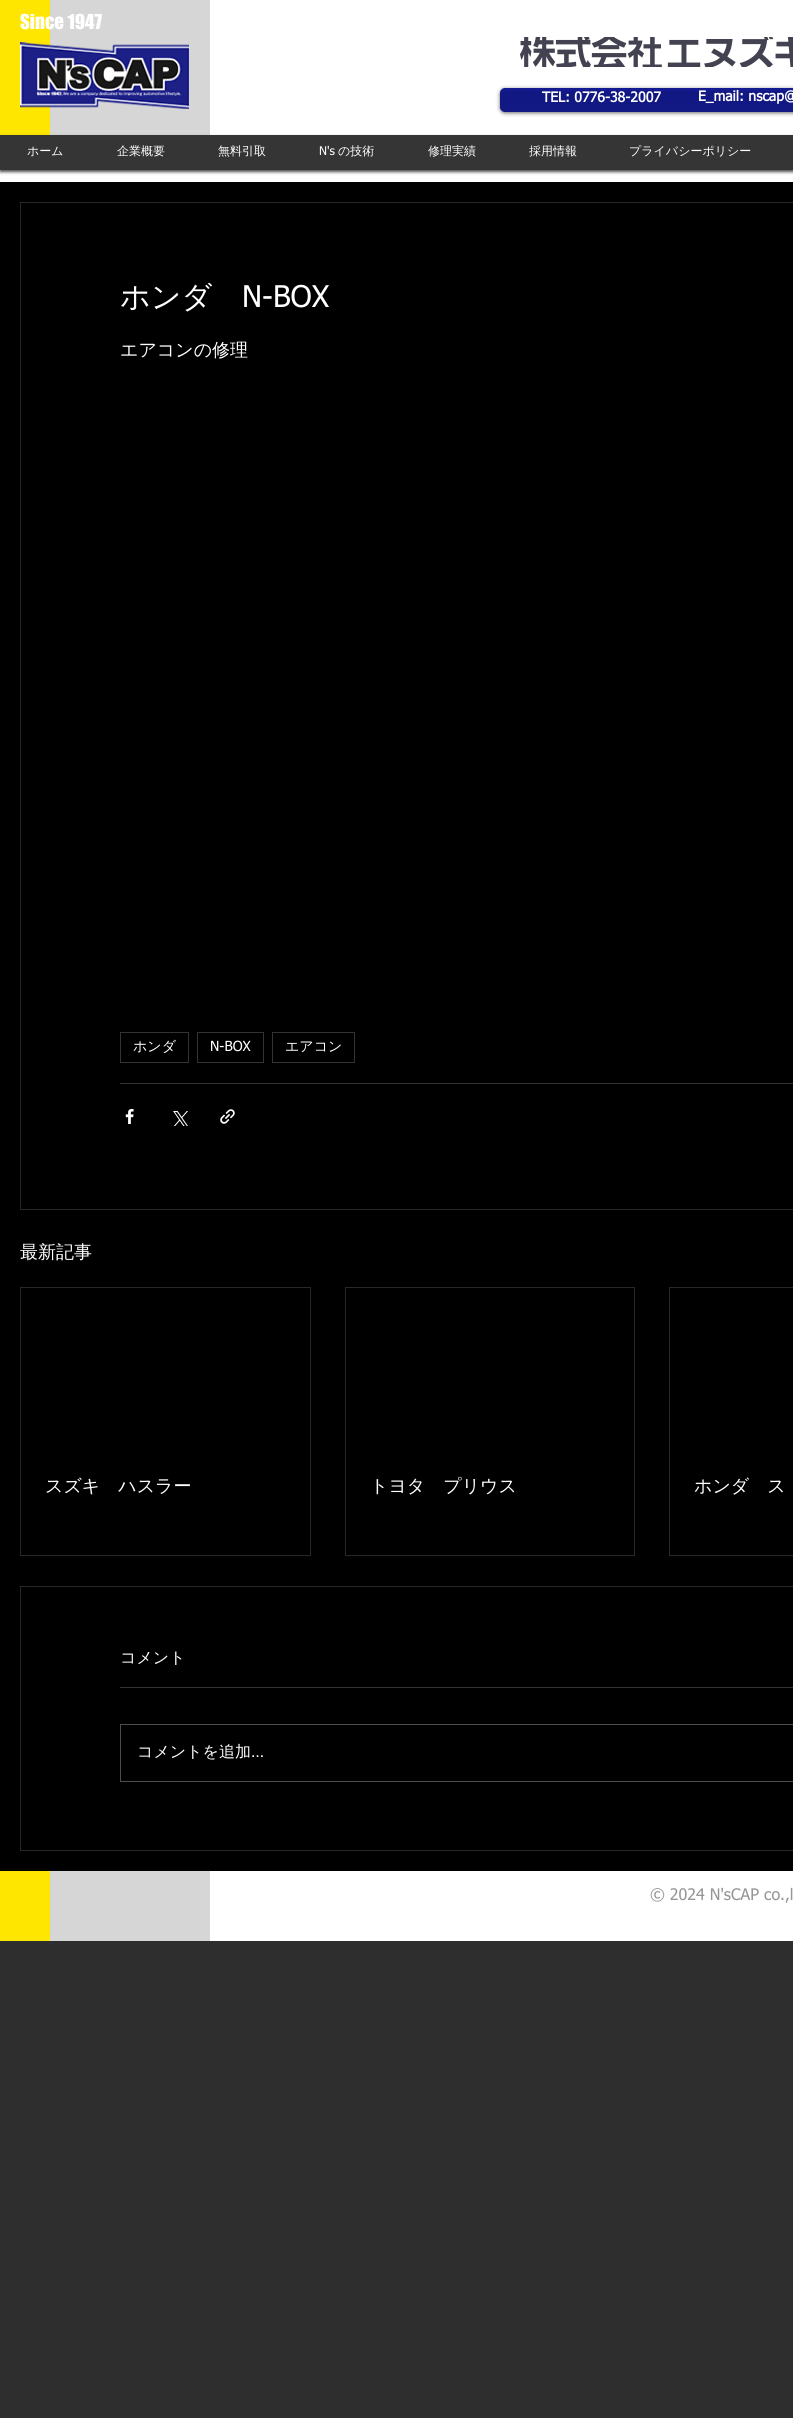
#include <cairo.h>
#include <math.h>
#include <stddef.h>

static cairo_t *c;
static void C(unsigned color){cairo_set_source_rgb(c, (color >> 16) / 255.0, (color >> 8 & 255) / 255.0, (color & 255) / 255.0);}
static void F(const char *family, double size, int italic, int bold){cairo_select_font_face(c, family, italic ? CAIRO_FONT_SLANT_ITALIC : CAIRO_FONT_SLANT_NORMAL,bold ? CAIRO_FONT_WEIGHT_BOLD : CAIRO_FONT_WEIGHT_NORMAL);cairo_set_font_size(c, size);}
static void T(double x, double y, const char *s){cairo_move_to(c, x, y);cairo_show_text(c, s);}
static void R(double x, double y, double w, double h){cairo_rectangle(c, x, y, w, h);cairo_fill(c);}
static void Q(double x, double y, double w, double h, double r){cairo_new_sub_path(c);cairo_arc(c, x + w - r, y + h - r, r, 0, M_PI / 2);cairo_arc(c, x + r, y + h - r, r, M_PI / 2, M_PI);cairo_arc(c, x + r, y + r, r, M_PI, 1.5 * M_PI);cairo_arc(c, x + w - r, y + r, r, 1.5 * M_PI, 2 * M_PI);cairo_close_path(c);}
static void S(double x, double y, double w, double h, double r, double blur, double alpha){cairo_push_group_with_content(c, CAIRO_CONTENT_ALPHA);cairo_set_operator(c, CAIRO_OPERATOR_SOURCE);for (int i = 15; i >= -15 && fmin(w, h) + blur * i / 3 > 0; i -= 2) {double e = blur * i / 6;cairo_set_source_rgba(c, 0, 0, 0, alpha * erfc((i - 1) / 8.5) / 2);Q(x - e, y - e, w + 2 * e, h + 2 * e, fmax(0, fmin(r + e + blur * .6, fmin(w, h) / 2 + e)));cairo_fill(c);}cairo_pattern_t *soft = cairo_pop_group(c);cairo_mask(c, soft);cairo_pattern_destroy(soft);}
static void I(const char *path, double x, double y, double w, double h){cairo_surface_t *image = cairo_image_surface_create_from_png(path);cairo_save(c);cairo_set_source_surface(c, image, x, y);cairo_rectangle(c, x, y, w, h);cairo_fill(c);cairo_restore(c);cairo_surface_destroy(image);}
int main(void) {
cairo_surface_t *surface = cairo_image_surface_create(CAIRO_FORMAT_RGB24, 793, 2418);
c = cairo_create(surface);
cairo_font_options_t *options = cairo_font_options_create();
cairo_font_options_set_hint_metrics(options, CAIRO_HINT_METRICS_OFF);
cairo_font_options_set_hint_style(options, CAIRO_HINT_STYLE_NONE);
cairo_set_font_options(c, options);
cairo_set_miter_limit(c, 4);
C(0x2f2e2e);
cairo_paint(c);
C(0xffffff);
R(0,0,793,182);
C(0xffe600);
R(0,0,50,135);
C(0xd6d6d6);
R(50,0,160,135);
F("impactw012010",19,0,0);
C(0xffffff);
T(20,29,"Since 1947");
I("1.png",20,42,169,67);
I("2.png",520,37,273,30);
C(0x000000);
S(500,89,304,24,5,2,.6);
C(0x141a8f);
Q(500,88,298,24,5);
cairo_fill(c);
I("3.png",500,91,293,21);
F("tahoma",14,0,1);
C(0xffffff);
T(542,102,"TEL: 0776-38-2007");
T(698,101,"E_mail: nscap@");
C(0x000000);
S(0,137,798,35,0,1.5,.7);
C(0x353535);
R(0,135,793,35);
F("WenQuanYi Zen Hei Medium",12,0,0);
C(0xffffff);
T(27,155,"ホーム");
T(117,155,"企業概要");
T(218,155,"無料引取");
F("tahoma",12,0,0);
T(319,155,"N's");
F("WenQuanYi Zen Hei Medium",12,0,0);
T(338,155,"の技術");
T(428,155,"修理実績");
T(529,155,"採用情報");
T(629,155,"プライバシーポリシー");
C(0x000000);
R(0,182,793,1689);
cairo_rectangle(c,20.5,202.5,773,1007);
C(0x282828);
cairo_set_line_width(c,1);
cairo_stroke(c);
F("WenQuanYi Zen Hei Medium",30,0,0);
C(0xffffff);
T(120,307,"ホンダ");
F("tahoma",30,0,0);
T(242,307,"N-BOX");
F("WenQuanYi Zen Hei Medium",18,0,0);
T(120,356,"エアコンの修理");
cairo_rectangle(c,120.5,1032.5,68,30);
C(0x333333);
cairo_stroke(c);
F("WenQuanYi Zen Hei Medium",14,0,0);
C(0xffffff);
T(133,1051,"ホンダ");
cairo_rectangle(c,197.5,1032.5,66,30);
C(0x333333);
cairo_stroke(c);
F("tahoma",14,0,0);
C(0xffffff);
T(210,1051,"N-BOX");
cairo_rectangle(c,272.5,1032.5,82,30);
C(0x333333);
cairo_stroke(c);
F("WenQuanYi Zen Hei Medium",14,0,0);
C(0xffffff);
T(285,1051,"エアコン");
C(0x333333);
R(120,1083,673,1);
I("4.png",125,1109,9,15);
I("5.png",173,1111,15,15);
I("6.png",220,1109,15,15);
F("WenQuanYi Zen Hei Medium",18,0,0);
C(0xffffff);
T(20,1258,"最新記事");
cairo_rectangle(c,20.5,1287.5,290,268);
C(0x282828);
cairo_stroke(c);
C(0xffffff);
T(45,1492,"スズキ　ハスラー");
cairo_rectangle(c,345.5,1287.5,289,268);
C(0x282828);
cairo_stroke(c);
C(0xffffff);
T(370,1492,"トヨタ　プリウス");
cairo_rectangle(c,669.5,1287.5,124,268);
C(0x282828);
cairo_stroke(c);
C(0xffffff);
T(694,1492,"ホンダ　ス");
cairo_rectangle(c,20.5,1586.5,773,264);
C(0x282828);
cairo_stroke(c);
F("WenQuanYi Zen Hei Medium",16,0,0);
C(0xffffff);
T(120,1663,"コメント");
C(0x333333);
R(120,1687,673,1);
cairo_rectangle(c,120.5,1724.5,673,57);
C(0x4d4d4d);
cairo_stroke(c);
C(0xffffff);
T(137,1757,"コメントを追加");
F("tahoma",16,0,0);
T(251,1757,"…");
R(210,1871,583,70);
C(0xffe600);
R(0,1871,50,70);
C(0xd6d6d6);
R(50,1871,160,70);
C(0x959595);
T(650,1900,"© 2024 N'sCAP co.,l");
cairo_surface_write_to_png(surface, "o.png");
cairo_font_options_destroy(options);
cairo_destroy(c);
cairo_surface_destroy(surface);
return 0;
}
